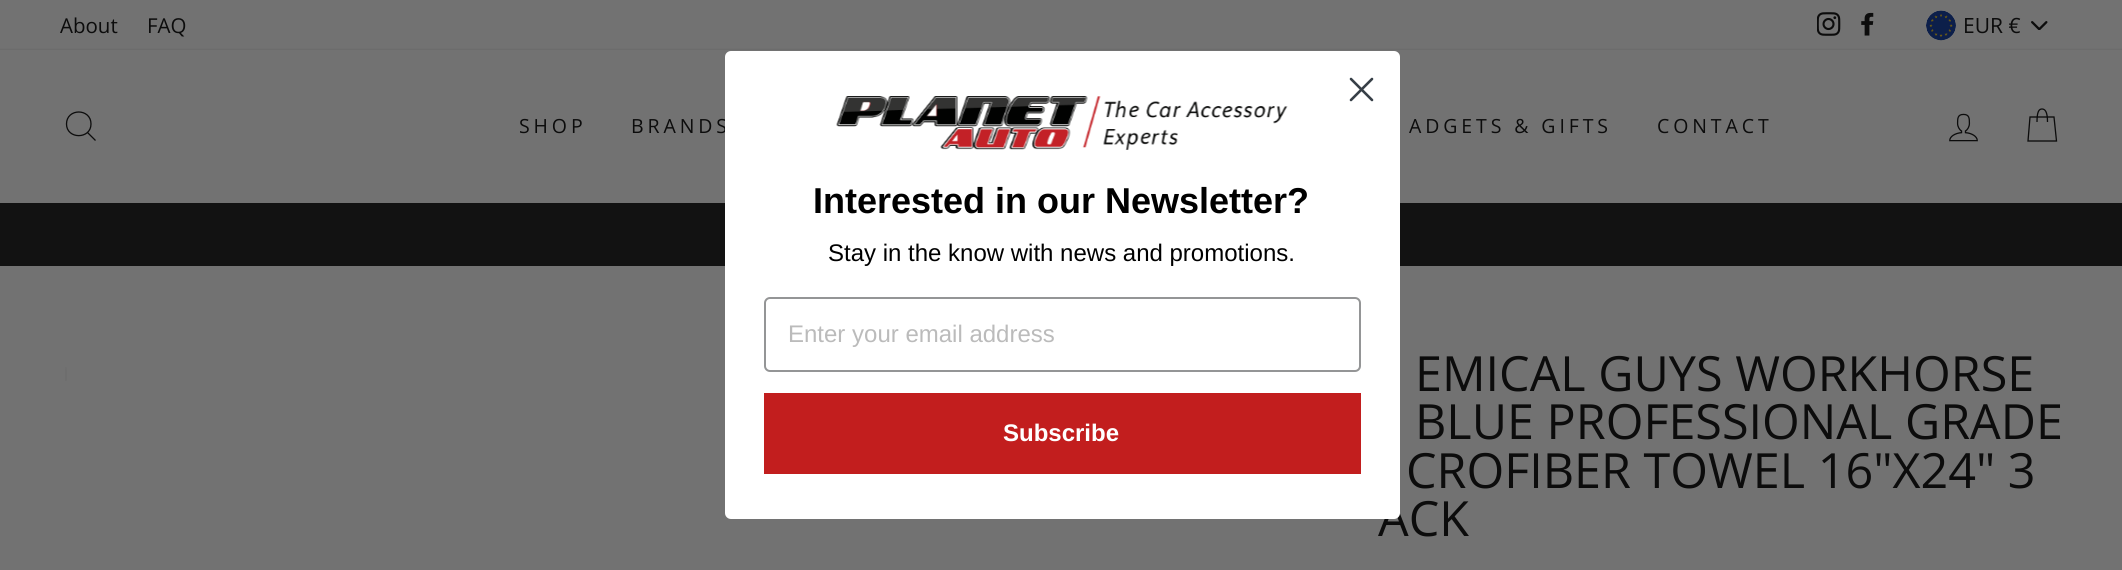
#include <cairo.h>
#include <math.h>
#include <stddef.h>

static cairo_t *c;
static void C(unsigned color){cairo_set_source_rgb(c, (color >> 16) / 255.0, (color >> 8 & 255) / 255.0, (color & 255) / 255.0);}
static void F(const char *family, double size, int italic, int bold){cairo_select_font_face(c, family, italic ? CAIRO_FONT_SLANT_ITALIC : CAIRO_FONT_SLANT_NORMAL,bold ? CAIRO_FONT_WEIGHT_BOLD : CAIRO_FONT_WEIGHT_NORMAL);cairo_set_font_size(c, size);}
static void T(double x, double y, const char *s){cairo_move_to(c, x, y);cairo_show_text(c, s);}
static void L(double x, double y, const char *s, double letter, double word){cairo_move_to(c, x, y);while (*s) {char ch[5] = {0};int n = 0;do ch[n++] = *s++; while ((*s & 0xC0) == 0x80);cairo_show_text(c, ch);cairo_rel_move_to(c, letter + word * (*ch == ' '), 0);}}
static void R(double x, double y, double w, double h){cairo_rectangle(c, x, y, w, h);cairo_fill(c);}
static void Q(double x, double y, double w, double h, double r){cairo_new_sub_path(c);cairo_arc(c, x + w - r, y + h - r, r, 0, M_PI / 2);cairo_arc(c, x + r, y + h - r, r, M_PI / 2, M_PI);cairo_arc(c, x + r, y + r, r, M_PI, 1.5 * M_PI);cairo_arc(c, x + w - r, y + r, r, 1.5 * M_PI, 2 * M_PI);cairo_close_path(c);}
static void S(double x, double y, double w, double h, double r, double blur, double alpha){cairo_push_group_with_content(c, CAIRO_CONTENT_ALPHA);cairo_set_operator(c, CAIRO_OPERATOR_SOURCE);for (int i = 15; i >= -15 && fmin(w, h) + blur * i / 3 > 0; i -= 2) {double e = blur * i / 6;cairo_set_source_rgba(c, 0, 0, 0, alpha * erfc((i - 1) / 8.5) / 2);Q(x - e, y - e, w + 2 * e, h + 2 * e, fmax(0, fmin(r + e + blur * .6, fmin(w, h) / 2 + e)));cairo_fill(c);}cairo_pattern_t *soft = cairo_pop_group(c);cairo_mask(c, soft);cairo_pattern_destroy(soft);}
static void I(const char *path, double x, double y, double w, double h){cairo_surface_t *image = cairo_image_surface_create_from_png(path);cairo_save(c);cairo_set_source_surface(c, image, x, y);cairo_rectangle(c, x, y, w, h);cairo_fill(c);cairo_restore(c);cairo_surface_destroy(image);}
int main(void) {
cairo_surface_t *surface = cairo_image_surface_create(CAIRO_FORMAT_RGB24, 2122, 570);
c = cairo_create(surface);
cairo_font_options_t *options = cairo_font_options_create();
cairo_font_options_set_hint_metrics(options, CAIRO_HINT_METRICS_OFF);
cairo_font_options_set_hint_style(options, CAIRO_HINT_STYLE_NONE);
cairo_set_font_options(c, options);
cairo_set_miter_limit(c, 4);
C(0x727272);
cairo_paint(c);
F("Open Sans",20.5,0,0);
C(0x0c0c0c);
T(60,33,"About");
T(147,33,"FAQ");
I("1.png",1817,12,24,24);
I("2.png",1861,12,13,24);
I("3.png",2031,21,17,9);
I("4.png",1926,10,30,31);
F("Open Sans",21,0,0);
T(1963,33,"EUR €");
C(0x0c0c0c);
S(0,50,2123,153,0,1,.2);
C(0x727272);
R(0,50,2122,153);
cairo_new_path(c);
cairo_move_to(c,91,124);
cairo_curve_to(c,91,139.5,66.5,139.5,66.5,124);
cairo_curve_to(c,66.5,108,91,108,91,124);
cairo_close_path(c);
cairo_move_to(c,95.5,140.5);
cairo_line_to(c,87.5,132.5);
C(0x0c0c0c);
cairo_set_line_width(c,1.3);
cairo_stroke(c);
F("Open Sans",19.5,0,0);
L(519,133,"SHOP",3.9,0);
L(631,133,"BRANDS",3.9,0);
L(1409,133,"ADGETS & GIFTS",3.9,0);
L(1657,133,"CONTACT",3.9,0);
I("5.png",1949,113,29,29);
cairo_new_path(c);
cairo_move_to(c,2037,122);
cairo_curve_to(c,2037,111.5,2039,109,2042,109);
cairo_curve_to(c,2045,109,2047.5,111.5,2047.5,122);
cairo_move_to(c,2030,117);
cairo_line_to(c,2054,117);
cairo_line_to(c,2056.5,141);
cairo_line_to(c,2028,141);
cairo_close_path(c);
cairo_stroke(c);
C(0x121212);
R(0,203,2122,63);
I("6.png",65,367,2,14);
F("Open Sans",48.5,0,0);
C(0x0c0c0c);
T(1415,391,"EMICAL GUYS WORKHORSE");
T(1415,439,"BLUE PROFESSIONAL GRADE");
T(1406,488,"CROFIBER TOWEL 16\"X24\" 3");
T(1378,536,"ACK");
C(0xffffff);
Q(725,51,675,468,6);
cairo_fill(c);
cairo_new_path(c);
cairo_move_to(c,1351,79);
cairo_line_to(c,1372,100);
cairo_move_to(c,1351,100);
cairo_line_to(c,1372,79);
cairo_close_path(c);
C(0x373f47);
cairo_set_line_width(c,2.6);
cairo_set_line_cap(c,CAIRO_LINE_CAP_ROUND);
cairo_set_line_join(c,CAIRO_LINE_JOIN_ROUND);
cairo_stroke(c);
I("7.png",836,96,452,54);
F("Liberation Sans",36,0,1);
C(0x000000);
T(813,213,"Interested in our Newsletter?");
F("Liberation Sans",24,0,0);
T(828,261,"Stay in the know with news and promotions.");
Q(765,298,595,73,5);
C(0x949596);
cairo_set_line_width(c,2);
cairo_set_line_cap(c,CAIRO_LINE_CAP_BUTT);
cairo_set_line_join(c,CAIRO_LINE_JOIN_MITER);
cairo_stroke(c);
C(0xbbbbbb);
T(788,342,"Enter your email address");
C(0xc21e1e);
R(764,393,597,81);
F("Liberation Sans",24,0,1);
C(0xffffff);
T(1003,441,"Subscribe");
cairo_surface_write_to_png(surface, "o.png");
cairo_font_options_destroy(options);
cairo_destroy(c);
cairo_surface_destroy(surface);
return 0;
}
